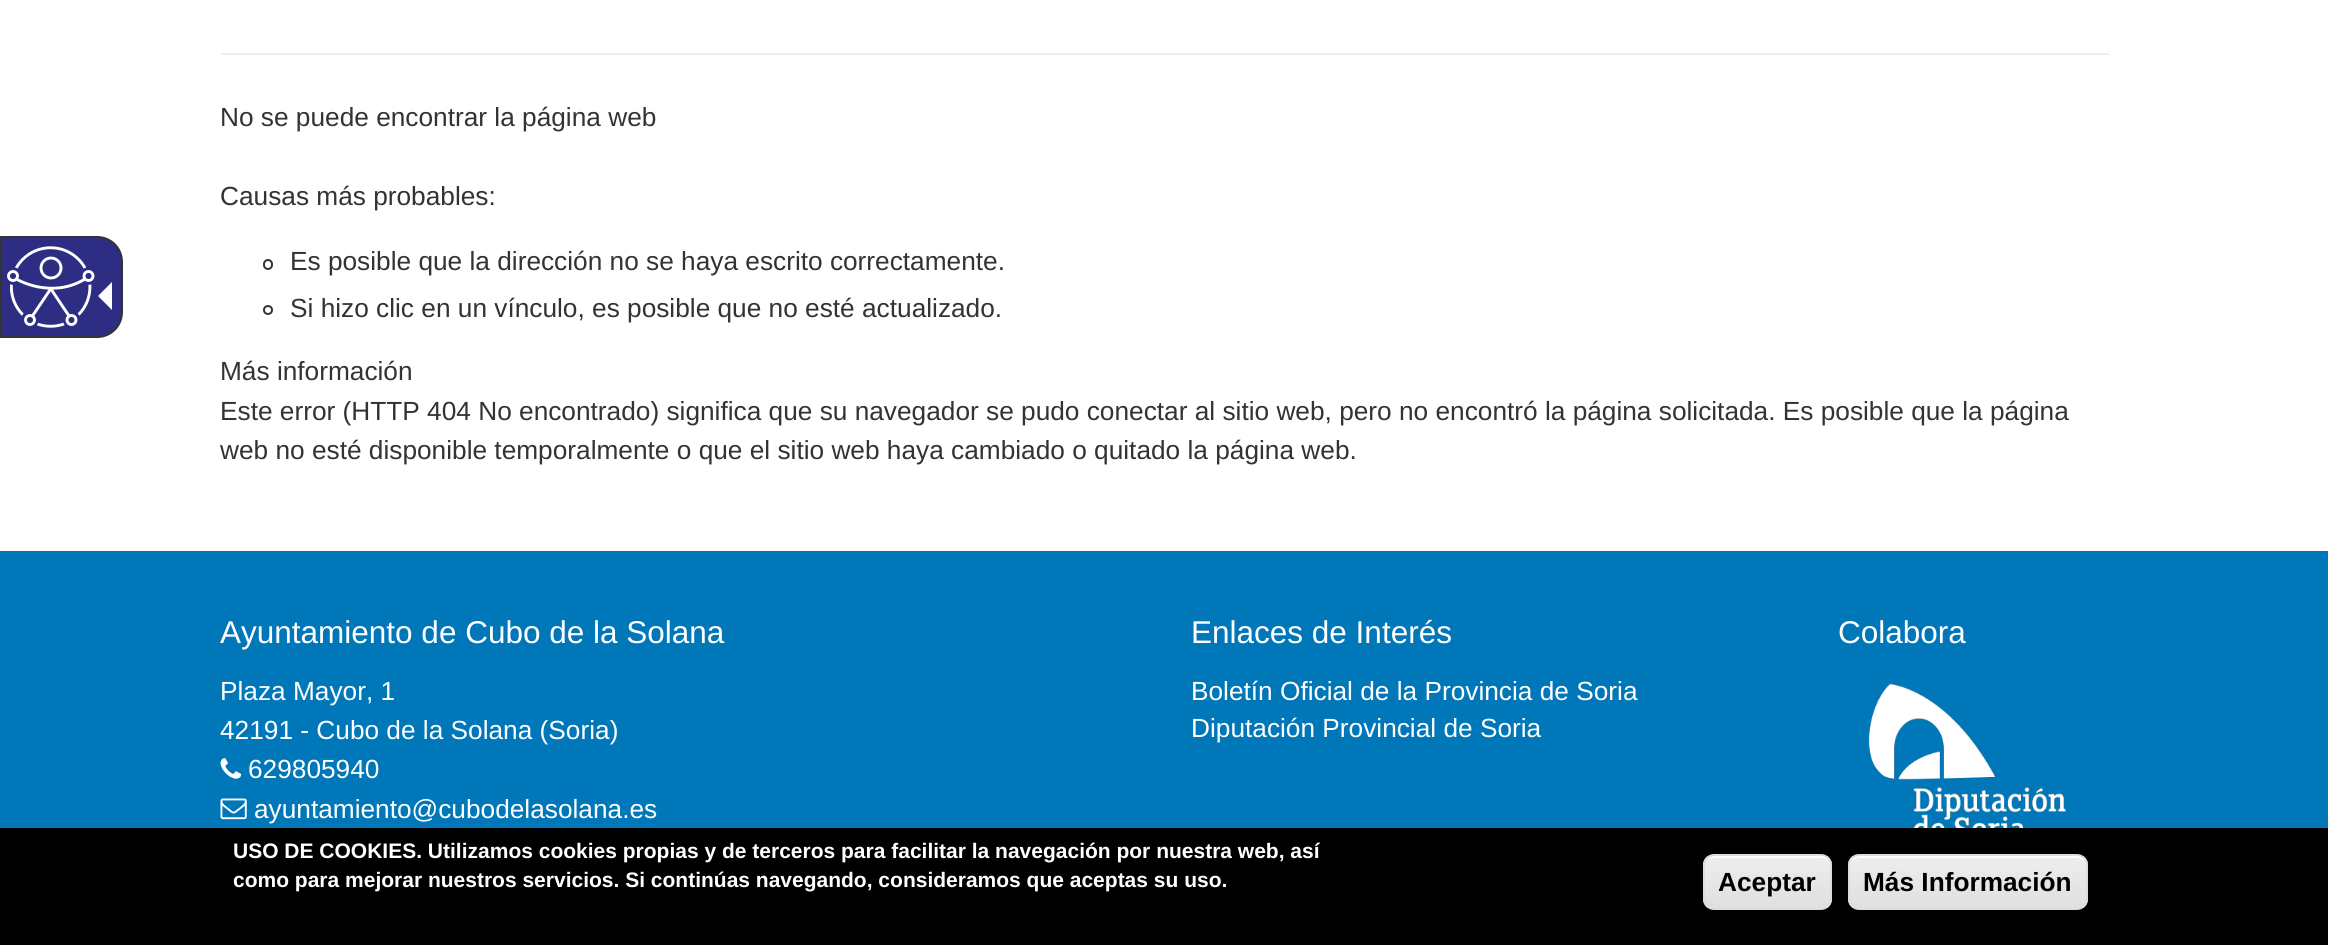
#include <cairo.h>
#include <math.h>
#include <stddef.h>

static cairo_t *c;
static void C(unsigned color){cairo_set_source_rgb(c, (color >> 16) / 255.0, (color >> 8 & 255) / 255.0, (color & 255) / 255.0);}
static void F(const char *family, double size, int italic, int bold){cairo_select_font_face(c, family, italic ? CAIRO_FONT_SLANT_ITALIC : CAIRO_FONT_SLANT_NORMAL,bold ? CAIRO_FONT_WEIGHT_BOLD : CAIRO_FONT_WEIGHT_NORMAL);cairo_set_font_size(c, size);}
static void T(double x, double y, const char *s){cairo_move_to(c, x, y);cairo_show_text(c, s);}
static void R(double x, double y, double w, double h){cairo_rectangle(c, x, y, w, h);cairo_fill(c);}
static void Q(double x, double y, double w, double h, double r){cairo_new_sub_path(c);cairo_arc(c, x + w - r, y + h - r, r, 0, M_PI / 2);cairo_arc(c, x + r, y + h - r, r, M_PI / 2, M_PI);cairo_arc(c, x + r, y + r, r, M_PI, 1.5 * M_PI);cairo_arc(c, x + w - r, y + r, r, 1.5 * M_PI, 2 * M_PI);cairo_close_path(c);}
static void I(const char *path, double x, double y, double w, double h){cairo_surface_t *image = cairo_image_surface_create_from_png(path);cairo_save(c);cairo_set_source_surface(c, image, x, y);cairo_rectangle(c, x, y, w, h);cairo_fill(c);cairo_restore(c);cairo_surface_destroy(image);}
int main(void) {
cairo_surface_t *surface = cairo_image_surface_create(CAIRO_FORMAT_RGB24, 2328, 945);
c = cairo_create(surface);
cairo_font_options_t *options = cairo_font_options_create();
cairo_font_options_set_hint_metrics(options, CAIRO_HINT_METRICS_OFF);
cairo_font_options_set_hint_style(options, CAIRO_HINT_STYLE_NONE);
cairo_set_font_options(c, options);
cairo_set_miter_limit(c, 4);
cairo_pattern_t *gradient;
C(0xffffff);
cairo_paint(c);
C(0x2d2e83);
cairo_new_path(c);
cairo_move_to(c,1,237);
cairo_line_to(c,97,237);
cairo_curve_to(c,111,237,122,248,122,262);
cairo_line_to(c,122,312);
cairo_curve_to(c,122,326,111,337,97,337);
cairo_line_to(c,1,337);
cairo_close_path(c);
cairo_fill_preserve(c);
C(0x333333);
cairo_stroke(c);
I("1.png",7,246,88,82);
C(0xffffff);
cairo_new_path(c);
cairo_move_to(c,112,282);
cairo_line_to(c,112,310);
cairo_line_to(c,98,296);
cairo_close_path(c);
cairo_fill(c);
C(0xeeeeee);
R(221,53,1888,2);
F("Liberation Sans",26.25,0,0);
C(0x333333);
T(220,126,"No se puede encontrar la página web");
T(220,205,"Causas más probables:");
Q(264,260,8,9,4);
cairo_stroke(c);
T(290,270,"Es posible que la dirección no se haya escrito correctamente.");
cairo_new_path(c);
cairo_arc(c,268,310,4,0,2 * M_PI);
cairo_stroke(c);
T(290,317,"Si hizo clic en un vínculo, es posible que no esté actualizado.");
T(220,380,"Más información");
T(220,420,"Este error (HTTP 404 No encontrado) significa que su navegador se pudo conectar al sitio web, pero no encontró la página solicitada. Es posible que la página");
T(220,459,"web no esté disponible temporalmente o que el sitio web haya cambiado o quitado la página web.");
C(0x0077b9);
R(0,551,2328,277);
F("Liberation Sans",31.5,0,0);
C(0xffffff);
T(220,643,"Ayuntamiento de Cubo de la Solana");
F("Liberation Sans",26.25,0,0);
T(220,700,"Plaza Mayor, 1");
T(220,739,"42191 - Cubo de la Solana (Soria)");
I("2.png",220,758,22,21);
T(248,778,"629805940");
I("3.png",220,798,27,22);
T(254,818,"ayuntamiento@cubodelasolana.es");
F("Liberation Sans",31.5,0,0);
T(1191,643,"Enlaces de Interés");
F("Liberation Sans",26.25,0,0);
T(1191,700,"Boletín Oficial de la Provincia de Soria");
T(1191,737,"Diputación Provincial de Soria");
F("Liberation Sans",31.5,0,0);
T(1838,643,"Colabora");
I("4.png",1868,683,198,145);
C(0x000000);
R(0,828,2328,117);
F("Liberation Sans",21,0,1);
C(0xffffff);
T(233,858,"USO DE COOKIES. Utilizamos cookies propias y de terceros para facilitar la navegación por nuestra web, así");
T(233,887,"como para mejorar nuestros servicios. Si continúas navegando, consideramos que aceptas su uso.");
cairo_save(c);
Q(1703,854,129,56,11);
cairo_clip(c);
gradient = cairo_pattern_create_linear(1768,856,1768,908);
cairo_pattern_add_color_stop_rgba(gradient,.05,0.929,0.929,0.929,1);
cairo_pattern_add_color_stop_rgba(gradient,1,0.875,0.875,0.875,1);
cairo_set_source(c,gradient);
cairo_pattern_destroy(gradient);
R(1703,856,129,52);
cairo_restore(c);
cairo_new_path(c);
cairo_move_to(c,1713,858);
cairo_line_to(c,1822,858);
cairo_curve_to(c,1833,858,1830,871,1830,878);
cairo_line_to(c,1830,904);
cairo_curve_to(c,1831,902,1831,901,1831,899);
cairo_line_to(c,1831,865);
cairo_curve_to(c,1831,860,1827,856,1822,856);
cairo_line_to(c,1714,856);
cairo_curve_to(c,1711,856,1708,858,1706,861);
cairo_curve_to(c,1708,859,1710,858,1713,858);
cairo_close_path(c);
cairo_fill(c);
Q(1704,855,127,54,10);
C(0xdcdcdc);
cairo_stroke(c);
F("Liberation Sans",26.25,0,1);
C(0x000000);
T(1718,891,"Aceptar");
cairo_save(c);
Q(1848,854,240,56,11);
cairo_clip(c);
gradient = cairo_pattern_create_linear(1968,856,1968,908);
cairo_pattern_add_color_stop_rgba(gradient,.05,0.929,0.929,0.929,1);
cairo_pattern_add_color_stop_rgba(gradient,1,0.875,0.875,0.875,1);
cairo_set_source(c,gradient);
cairo_pattern_destroy(gradient);
R(1848,856,240,52);
cairo_restore(c);
C(0xffffff);
cairo_new_path(c);
cairo_move_to(c,1858,858);
cairo_line_to(c,2077,858);
cairo_curve_to(c,2082,858,2086,861,2086,866);
cairo_line_to(c,2086,865);
cairo_curve_to(c,2086,860,2082,856,2077,856);
cairo_line_to(c,1859,856);
cairo_curve_to(c,1854,856,1850,860,1850,865);
cairo_line_to(c,1850,866);
cairo_curve_to(c,1850,861,1854,858,1858,858);
cairo_close_path(c);
cairo_fill(c);
Q(1849,855,238,54,10);
C(0xdcdcdc);
cairo_stroke(c);
C(0x000000);
T(1863,891,"Más Información");
cairo_surface_write_to_png(surface, "o.png");
cairo_font_options_destroy(options);
cairo_destroy(c);
cairo_surface_destroy(surface);
return 0;
}
